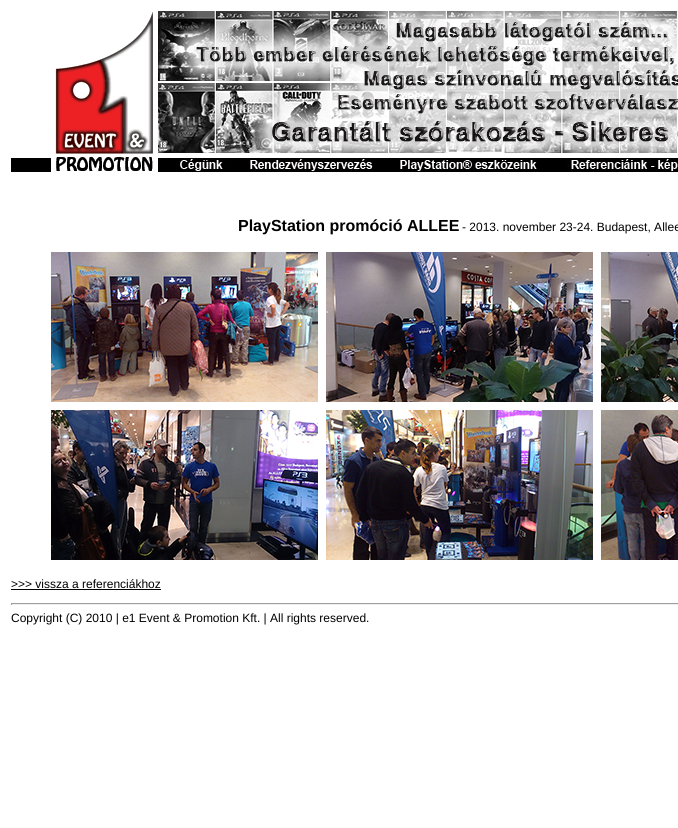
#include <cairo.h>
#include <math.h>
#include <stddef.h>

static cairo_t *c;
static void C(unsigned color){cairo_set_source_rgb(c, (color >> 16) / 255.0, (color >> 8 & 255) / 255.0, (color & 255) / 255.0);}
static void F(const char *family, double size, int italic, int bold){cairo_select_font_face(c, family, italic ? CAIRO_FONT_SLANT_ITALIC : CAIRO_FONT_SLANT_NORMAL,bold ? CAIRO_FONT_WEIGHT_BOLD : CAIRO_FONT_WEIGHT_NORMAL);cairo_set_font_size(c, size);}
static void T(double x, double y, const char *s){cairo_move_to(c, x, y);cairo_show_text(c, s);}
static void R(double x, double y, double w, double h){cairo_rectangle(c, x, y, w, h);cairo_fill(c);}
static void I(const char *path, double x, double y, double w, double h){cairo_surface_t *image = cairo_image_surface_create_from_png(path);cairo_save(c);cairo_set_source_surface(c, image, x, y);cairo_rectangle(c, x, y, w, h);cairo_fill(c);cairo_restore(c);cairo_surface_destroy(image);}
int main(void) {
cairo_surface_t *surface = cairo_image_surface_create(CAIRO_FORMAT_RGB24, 678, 828);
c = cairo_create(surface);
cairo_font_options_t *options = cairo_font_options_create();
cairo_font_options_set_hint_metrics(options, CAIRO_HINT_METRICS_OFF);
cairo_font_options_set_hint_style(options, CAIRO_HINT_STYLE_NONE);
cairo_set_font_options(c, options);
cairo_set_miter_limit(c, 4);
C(0xffffff);
cairo_paint(c);
I("1.png",55,12,98,159);
I("2.png",158,11,520,142);
C(0x000000);
R(11,158,40,14);
R(158,158,8,14);
I("3.png",166,158,70,14);
I("4.png",236,158,150,14);
I("5.png",386,158,164,14);
I("6.png",550,158,128,14);
F("Liberation Sans",16,0,1);
T(238,231,"PlayStation promóció ALLEE");
F("Liberation Sans",12,0,0);
T(462,231,"- 2013. november 23-24. Budapest, Allee");
I("7.png",51,252,267,150);
I("8.png",326,252,267,150);
I("9.png",601,252,77,150);
I("10.png",51,410,267,150);
I("11.png",326,410,267,150);
I("12.png",601,410,77,150);
T(11,588,">>> vissza a referenciákhoz");
R(11,589,150,1);
C(0x9f9f9f);
R(11,603,667,1);
C(0xeeeeee);
R(11,604,667,1);
C(0x9f9f9f);
R(11,603,1,2);
C(0x000000);
T(11,622,"Copyright (C) 2010 | e1 Event & Promotion Kft. | All rights reserved.");
cairo_surface_write_to_png(surface, "o.png");
cairo_font_options_destroy(options);
cairo_destroy(c);
cairo_surface_destroy(surface);
return 0;
}
